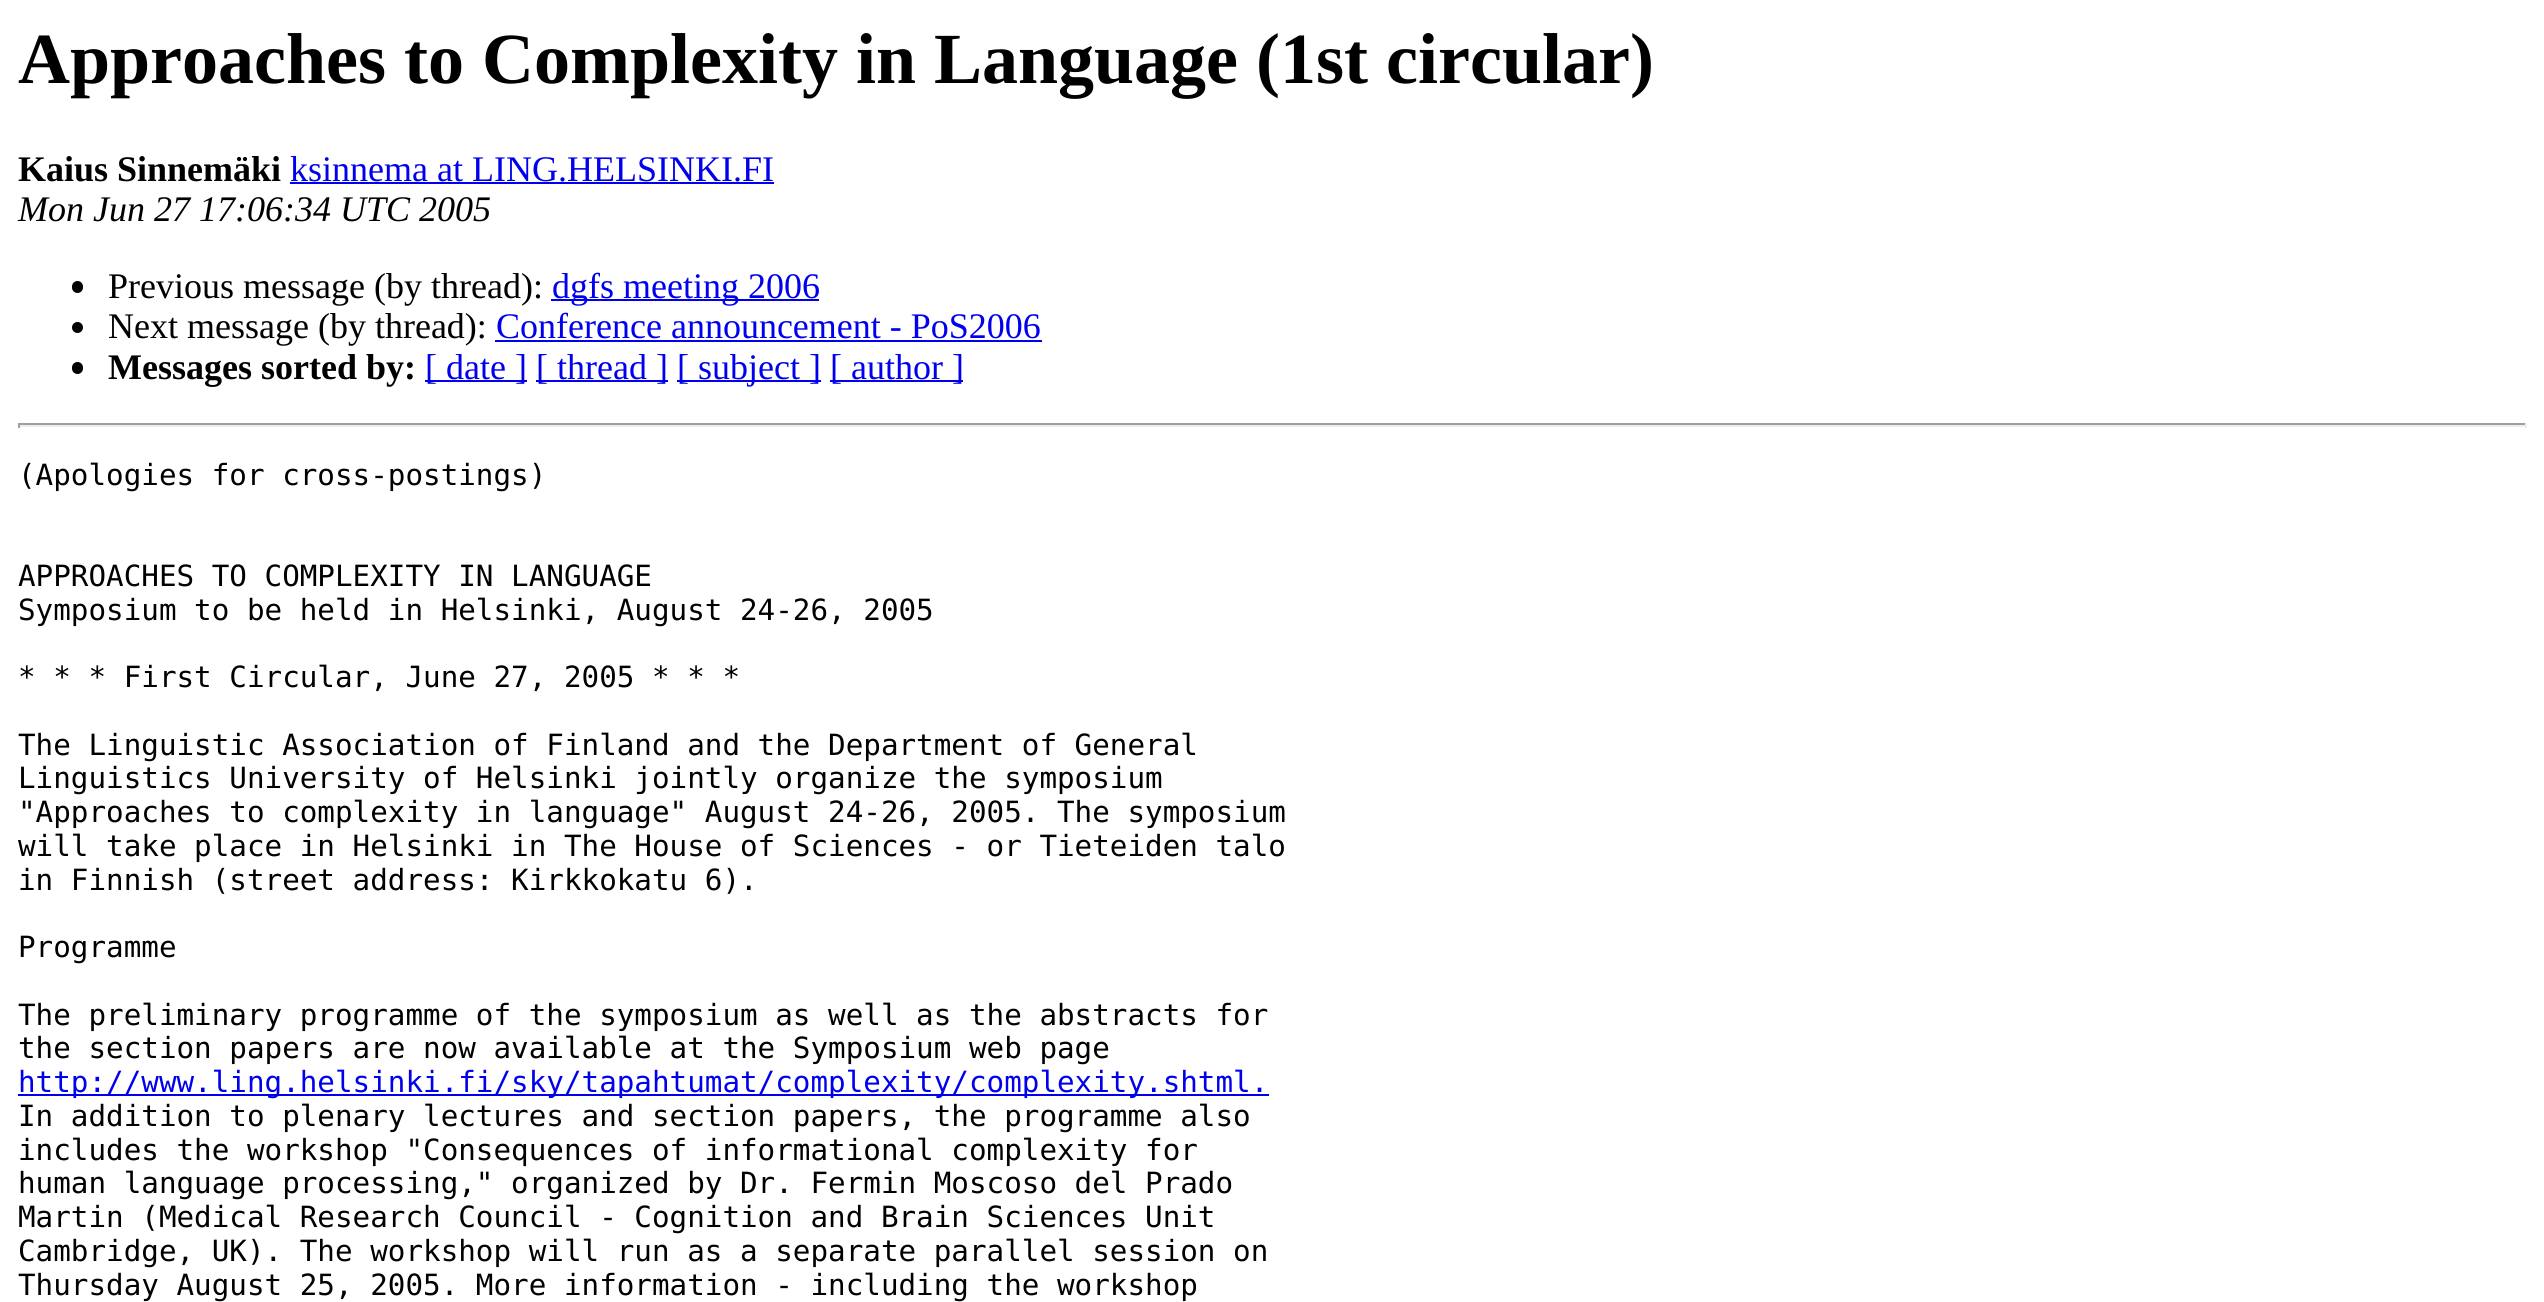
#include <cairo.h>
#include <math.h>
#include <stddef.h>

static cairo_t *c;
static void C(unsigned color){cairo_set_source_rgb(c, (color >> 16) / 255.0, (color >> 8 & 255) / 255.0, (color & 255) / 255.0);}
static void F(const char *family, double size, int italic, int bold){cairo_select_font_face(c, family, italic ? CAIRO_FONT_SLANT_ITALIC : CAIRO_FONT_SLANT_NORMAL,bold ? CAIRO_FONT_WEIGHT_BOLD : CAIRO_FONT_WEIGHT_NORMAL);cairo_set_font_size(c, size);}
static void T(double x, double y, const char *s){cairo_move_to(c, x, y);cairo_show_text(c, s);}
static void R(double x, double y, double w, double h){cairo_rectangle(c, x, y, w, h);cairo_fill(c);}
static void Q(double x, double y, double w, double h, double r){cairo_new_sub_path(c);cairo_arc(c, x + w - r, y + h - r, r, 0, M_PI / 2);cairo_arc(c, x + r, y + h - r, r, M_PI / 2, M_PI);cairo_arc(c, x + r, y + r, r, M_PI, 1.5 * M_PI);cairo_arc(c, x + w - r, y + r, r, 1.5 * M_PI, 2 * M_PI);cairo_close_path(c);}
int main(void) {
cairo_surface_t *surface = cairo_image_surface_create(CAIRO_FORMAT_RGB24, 2544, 1302);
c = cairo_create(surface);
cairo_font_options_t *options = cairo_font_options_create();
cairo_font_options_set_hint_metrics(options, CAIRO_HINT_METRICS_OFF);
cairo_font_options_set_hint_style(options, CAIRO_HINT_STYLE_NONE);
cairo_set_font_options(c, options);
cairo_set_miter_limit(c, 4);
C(0xffffff);
cairo_paint(c);
F("Liberation Serif",72,0,1);
C(0x000000);
T(18,83,"Approaches to Complexity in Language (1st circular)");
F("Liberation Serif",36,0,1);
T(18,181,"Kaius Sinnemäki");
F("Liberation Serif",36,0,0);
C(0x0000ee);
T(290,181,"ksinnema at LING.HELSINKI.FI");
R(290,182,484,2);
F("Liberation Serif",36,1,0);
C(0x000000);
T(18,221,"Mon Jun 27 17:06:34 UTC 2005");
Q(72,281,11,12,5.5);
cairo_fill(c);
F("Liberation Serif",36,0,0);
T(108,298,"Previous message (by thread):");
C(0x0000ee);
R(551,299,268,2);
T(552,298,"dgfs meeting 2006");
C(0x000000);
cairo_new_path(c);
cairo_arc(c,77.5,327.5,5.5,0,2 * M_PI);
cairo_fill(c);
T(108,338,"Next message (by thread):");
C(0x0000ee);
T(496,338,"Conference announcement - PoS2006");
R(495,340,547,2);
C(0x000000);
Q(72,362,11,12,5.5);
cairo_fill(c);
F("Liberation Serif",36,0,1);
T(108,379,"Messages sorted by:");
C(0x0000ee);
R(425,380,102,2);
F("Liberation Serif",36,0,0);
T(425,379,"[ date ]");
R(536,380,132,2);
T(536,379,"[ thread ]");
R(677,380,144,2);
T(677,379,"[ subject ]");
R(830,380,133,2);
T(830,379,"[ author ]");
C(0x9f9f9f);
R(18,423,2509,2);
C(0xeeeeee);
R(2525,423,2,5);
R(18,425,2509,2);
C(0x9f9f9f);
R(18,423,2,5);
F("DejaVu Sans Mono",29.25,0,0);
C(0x000000);
T(18,485,"(Apologies for cross-postings)");
T(18,586,"APPROACHES TO COMPLEXITY IN LANGUAGE");
T(18,620,"Symposium to be held in Helsinki, August 24-26, 2005");
T(18,687,"* * * First Circular, June 27, 2005 * * *");
T(18,755,"The Linguistic Association of Finland and the Department of General");
T(18,788,"Linguistics University of Helsinki jointly organize the symposium");
T(18,822,"\"Approaches to complexity in language\" August 24-26, 2005. The symposium");
T(18,856,"will take place in Helsinki in The House of Sciences - or Tieteiden talo");
T(18,890,"in Finnish (street address: Kirkkokatu 6).");
T(18,957,"Programme");
T(18,1025,"The preliminary programme of the symposium as well as the abstracts for");
T(18,1058,"the section papers are now available at the Symposium web page");
C(0x0000ee);
R(18,1094,1251,2);
T(18,1092,"http://www.ling.helsinki.fi/sky/tapahtumat/complexity/complexity.shtml.");
C(0x000000);
T(18,1126,"In addition to plenary lectures and section papers, the programme also");
T(18,1160,"includes the workshop \"Consequences of informational complexity for");
T(18,1193,"human language processing,\" organized by Dr. Fermin Moscoso del Prado");
T(18,1227,"Martin (Medical Research Council - Cognition and Brain Sciences Unit");
T(18,1261,"Cambridge, UK). The workshop will run as a separate parallel session on");
T(18,1295,"Thursday August 25, 2005. More information - including the workshop");
cairo_surface_write_to_png(surface, "o.png");
cairo_font_options_destroy(options);
cairo_destroy(c);
cairo_surface_destroy(surface);
return 0;
}
